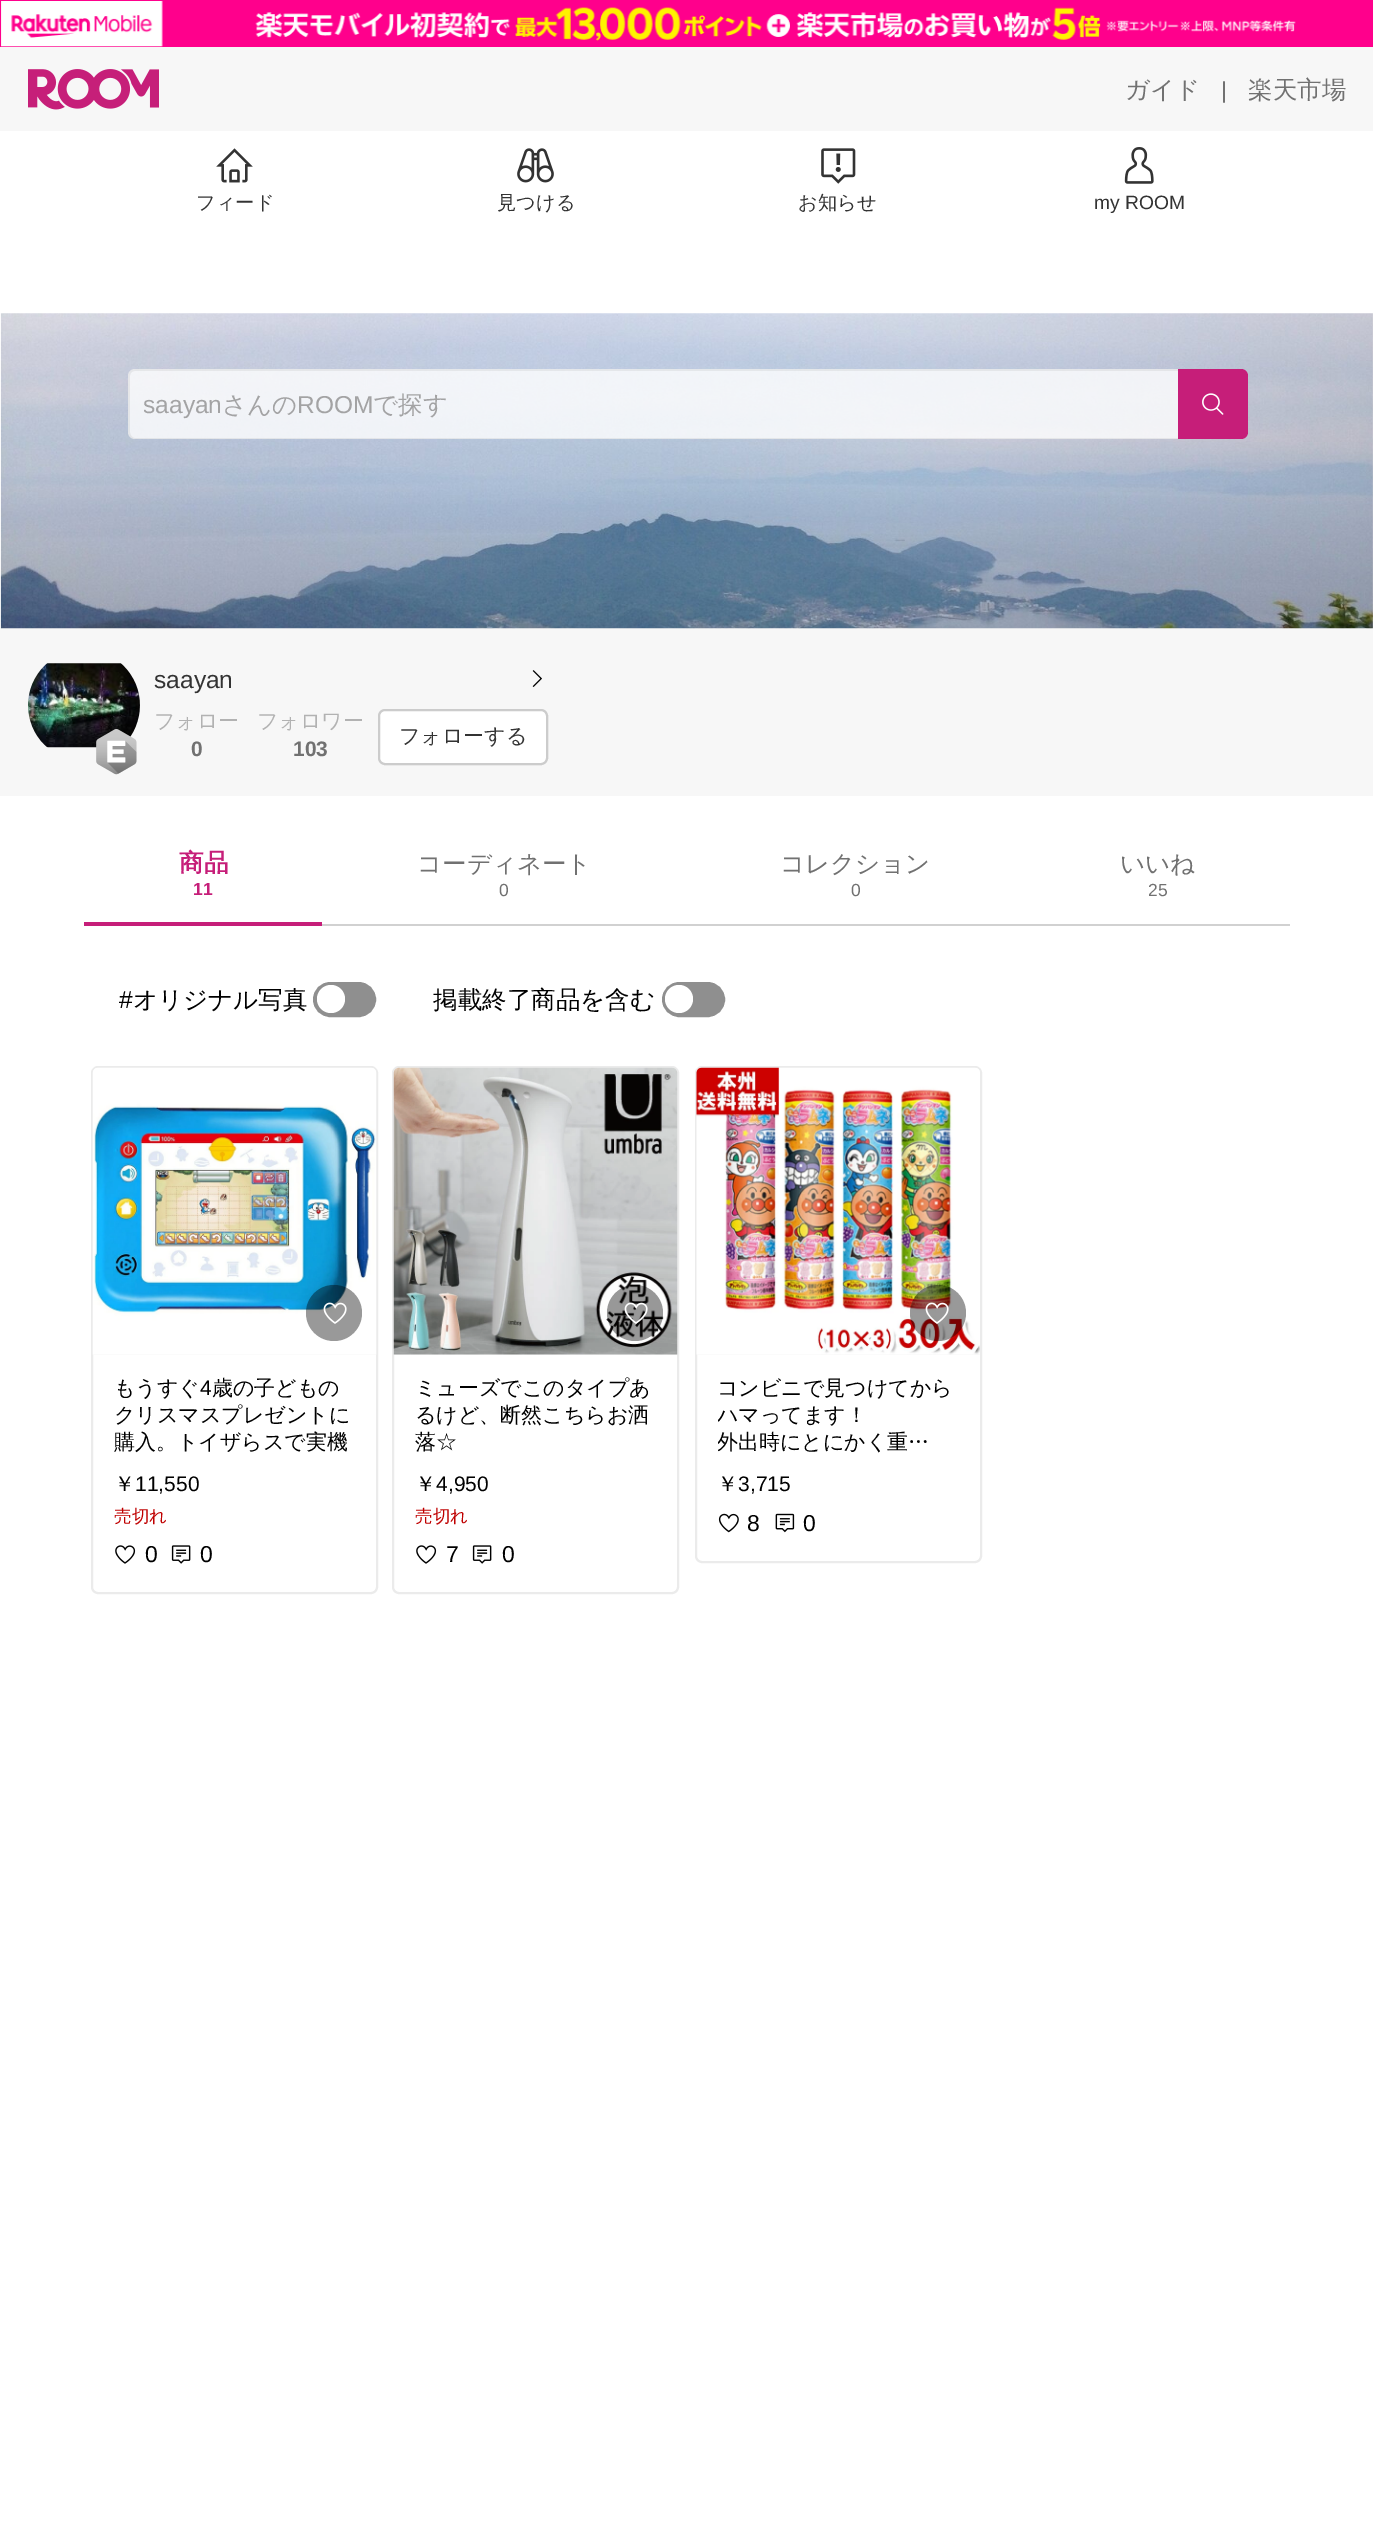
%!PS
<< /PageSize [1373 2521] /PageUsesTransparency true >> setpagedevice
/mt/moveto load def
/li/lineto load def
/ct/curveto load def
/cp/closepath load def
/fl/fill load def
/st/stroke load def
/gs/gsave load def
/gr/grestore load def
/lw/setlinewidth load def
/co { dup -16 bitshift 255 div exch dup -8 bitshift 255 and 255 div exch 255 and 255 div setrgbcolor } def
/fn { [ exch dup neg 0 0 3 -1 roll 0 0 ] selectfont } def
/tx { co fn moveto show } def
/bx { co rectfill } def
/al { dup .setfillconstantalpha .setstrokeconstantalpha } def
/ci { newpath 0 360 arc closepath } def
/rr { 5 dict begin { /r /h /w /y /x } { exch def } forall
  x r add y moveto x w add y 2 copy h add r arct x w add y h add x 1 index r arct
  x y h add x y r arct x y 2 copy exch w add exch r arct closepath end } def
/im { 5 dict begin { /h /w /y /x /name } { exch def } forall
  gsave x y translate w h scale
  w h 8 [w 0 0 h 0 0] name (r) file false 3 colorimage grestore end } def
0 .pushpdf14devicefilter
0 2521 translate 1 -1 scale
4 setmiterlimit
0 0 1373 2521 16#FFFFFF bx
(media/1.raw) 0 0 1373 47 im
0 47 1373 84 16#F7F7F7 bx
(media/2.raw) 28 69 131 41 im
(media/3.raw) 216 148 37 35 im
(media/4.raw) 517 148 37 35 im
(media/5.raw) 821 148 35 36 im
(media/6.raw) 1124 147 30 37 im
0 628 1373 168 16#F7F7F7 bx
(media/7.raw) 0 313 1373 316 im
0.8 al
16#FFFFFF co
135 369 mt 1178 369 li 1178 439 li 135 439 li 131 439 128 436 128 432 ct 128 376 li 128 372 131 369 135 369 ct cp fl
0.06 al
16#000000 co
135 369 mt 1178 369 li 1178 439 li 135 439 li 131 439 128 436 128 432 ct 128 376 li 128 372 131 369 135 369 ct cp 135 371 mt 1178 371 li 1178 438 li 135 438 li 132 438 130 435 130 432 ct 130 376 li 130 373 132 371 135 371 ct cp eofill
1 al
16#C61E79 co
1178 369 mt 1241 369 li 1245 369 1248 372 1248 376 ct 1248 432 li 1248 436 1245 439 1241 439 ct 1178 439 li cp fl
(media/8.raw) 1202 393 22 22 im
(media/9.raw) 28 663 112 85 im
(media/10.raw) 96 729 41 46 im
(media/11.raw) 532 670 10 17 im
16#FFFFFF co
378 709 170 56 7 rr fl
0.2 al
16#000000 co
2 lw
379 710 168 54 6 rr st
1 al
84 922 238 4 16#C61E79 bx
322 924 968 2 16#D1D1D1 bx
16#8F8F8F co
315 984 59 31 15.5 rr gs fl gr
4 lw
st
16#FFFFFF co
331 999 14 ci fl
16#8F8F8F co
664 984 59 31 15.5 rr gs fl gr
st
16#FFFFFF co
679 999 14 ci fl
16#EBEBEB co
2 lw
92 1067 285 526 6 rr st
16#F7F7F7 co
98 1068 mt 371 1068 li 374 1068 376 1070 376 1073 ct 376 1355 li 93 1355 li 93 1073 li 93 1070 95 1068 98 1068 ct cp fl
(media/12.raw) 92 1067 285 288 im
0.4 al
16#000000 co
334 1313 28 ci fl
1 al
(media/13.raw) 323 1302 24 22 im
(media/14.raw) 115 1545 21 19 im
(media/15.raw) 171 1545 20 19 im
16#EBEBEB co
393 1067 285 526 6 rr st
16#F7F7F7 co
399 1068 mt 672 1068 li 675 1068 677 1070 677 1073 ct 677 1355 li 394 1355 li 394 1073 li 394 1070 396 1068 399 1068 ct cp fl
(media/16.raw) 393 1067 285 288 im
0.4 al
16#000000 co
635 1313 28 ci fl
1 al
(media/17.raw) 624 1302 24 22 im
(media/14.raw) 416 1545 21 19 im
(media/15.raw) 472 1545 20 19 im
16#EBEBEB co
696 1067 285 495 6 rr st
16#F7F7F7 co
702 1068 mt 975 1068 li 978 1068 980 1070 980 1073 ct 980 1355 li 697 1355 li 697 1073 li 697 1070 699 1068 702 1068 ct cp fl
(media/18.raw) 696 1067 284 288 im
0.4 al
16#000000 co
938 1313 28 ci fl
1 al
(media/19.raw) 925 1302 24 22 im
(media/20.raw) 718 1513 21 20 im
(media/21.raw) 775 1513 20 20 im
(ガイド) 1125 98 /WenQuanYiZenHei-Medium 24.5 16#717171 tx
(|) 1221 98 /LiberationSans-Regular 23 16#717171 tx
(楽天市場) 1248 98 /WenQuanYiZenHei-Medium 24.5 16#717171 tx
(フィード) 196 209 /WenQuanYiZenHei-Medium 19.25 16#333333 tx
(見つける) 497 209 /WenQuanYiZenHei-Medium 19.25 16#333333 tx
(お知らせ) 798 209 /WenQuanYiZenHei-Medium 19.25 16#333333 tx
(my ROOM) 1094 209 /LiberationSans-Regular 19.25 16#333333 tx
gs
144 390 964 32 rectclip
(saayan) 143 413 /LiberationSans-Regular 24.5 16#A3A3A4 tx
gr
(さんの) 222 413 /WenQuanYiZenHei-Medium 24.5 16#A3A3A4 tx
(ROOM) 297 413 /LiberationSans-Regular 24.5 16#A3A3A4 tx
(で探す) 373 413 /WenQuanYiZenHei-Medium 24.5 16#A3A3A4 tx
(saayan) 154 688 /LiberationSans-Regular 24.5 16#333333 tx
(フォロー) 154 728 /WenQuanYiZenHei-Medium 21 16#B2B2B2 tx
(0) 191 756 /LiberationSans-Bold 21 16#717171 tx
(フォロワー) 257 728 /WenQuanYiZenHei-Medium 21 16#B2B2B2 tx
(103) 293 756 /LiberationSans-Bold 21 16#717171 tx
(フォローする) 399 743 /WenQuanYiZenHei-Medium 21 16#333333 tx
(商品) 179 871 /WenQuanYiZenHei-Bold 24.5 16#C61E79 tx
(11) 193 895 /LiberationSans-Bold 17.5 16#C61E79 tx
(コーディネート) 417 872 /WenQuanYiZenHei-Medium 24.5 16#717171 tx
(0) 499 896 /LiberationSans-Regular 17.5 16#717171 tx
(コレクション) 780 872 /WenQuanYiZenHei-Medium 24.5 16#717171 tx
(0) 851 896 /LiberationSans-Regular 17.5 16#717171 tx
(いいね) 1120 872 /WenQuanYiZenHei-Medium 24.5 16#717171 tx
(25) 1148 896 /LiberationSans-Regular 17.5 16#717171 tx
(#) 119 1008 /LiberationSans-Regular 24.5 16#000000 tx
(オリジナル写真) 133 1008 /WenQuanYiZenHei-Medium 24.5 16#000000 tx
(掲載終了商品を含む) 433 1008 /WenQuanYiZenHei-Medium 24.5 16#000000 tx
(もうすぐ) 114 1395 /WenQuanYiZenHei-Medium 21 16#000000 tx
(4) 200 1395 /LiberationSans-Regular 21 16#000000 tx
(歳の子どもの) 212 1395 /WenQuanYiZenHei-Medium 21 16#000000 tx
(クリスマスプレゼントに) 114 1422 /WenQuanYiZenHei-Medium 21 16#000000 tx
(購入。トイザらスで実機) 114 1449 /WenQuanYiZenHei-Medium 21 16#000000 tx
(￥) 114 1491 /WenQuanYiZenHei-Medium 21 16#000000 tx
(11,550) 135 1491 /LiberationSans-Regular 21 16#000000 tx
(売切れ) 114 1522 /WenQuanYiZenHei-Medium 17.5 16#BF0000 tx
(0) 145 1562 /LiberationSans-Regular 23 16#000000 tx
(0) 200 1562 /LiberationSans-Regular 23 16#000000 tx
(ミューズでこのタイプあ) 415 1395 /WenQuanYiZenHei-Medium 21 16#000000 tx
(るけど、断然こちらお洒) 415 1422 /WenQuanYiZenHei-Medium 21 16#000000 tx
(落☆) 415 1449 /WenQuanYiZenHei-Medium 21 16#000000 tx
(￥) 415 1491 /WenQuanYiZenHei-Medium 21 16#000000 tx
(4,950) 436 1491 /LiberationSans-Regular 21 16#000000 tx
(売切れ) 415 1522 /WenQuanYiZenHei-Medium 17.5 16#BF0000 tx
(7) 446 1562 /LiberationSans-Regular 23 16#000000 tx
(0) 502 1562 /LiberationSans-Regular 23 16#000000 tx
(コンビニで見つけてから) 717 1395 /WenQuanYiZenHei-Medium 21 16#000000 tx
gs
718 1376 241 84 rectclip
(ハマってます！) 717 1422 /WenQuanYiZenHei-Medium 21 16#000000 tx
(外出時にとにかく重…) 717 1449 /WenQuanYiZenHei-Medium 21 16#000000 tx
gr
(￥) 717 1491 /WenQuanYiZenHei-Medium 21 16#000000 tx
(3,715) 738 1491 /LiberationSans-Regular 21 16#000000 tx
(8) 747 1531 /LiberationSans-Regular 23 16#000000 tx
(0) 803 1531 /LiberationSans-Regular 23 16#000000 tx
.poppdf14devicefilter showpage
